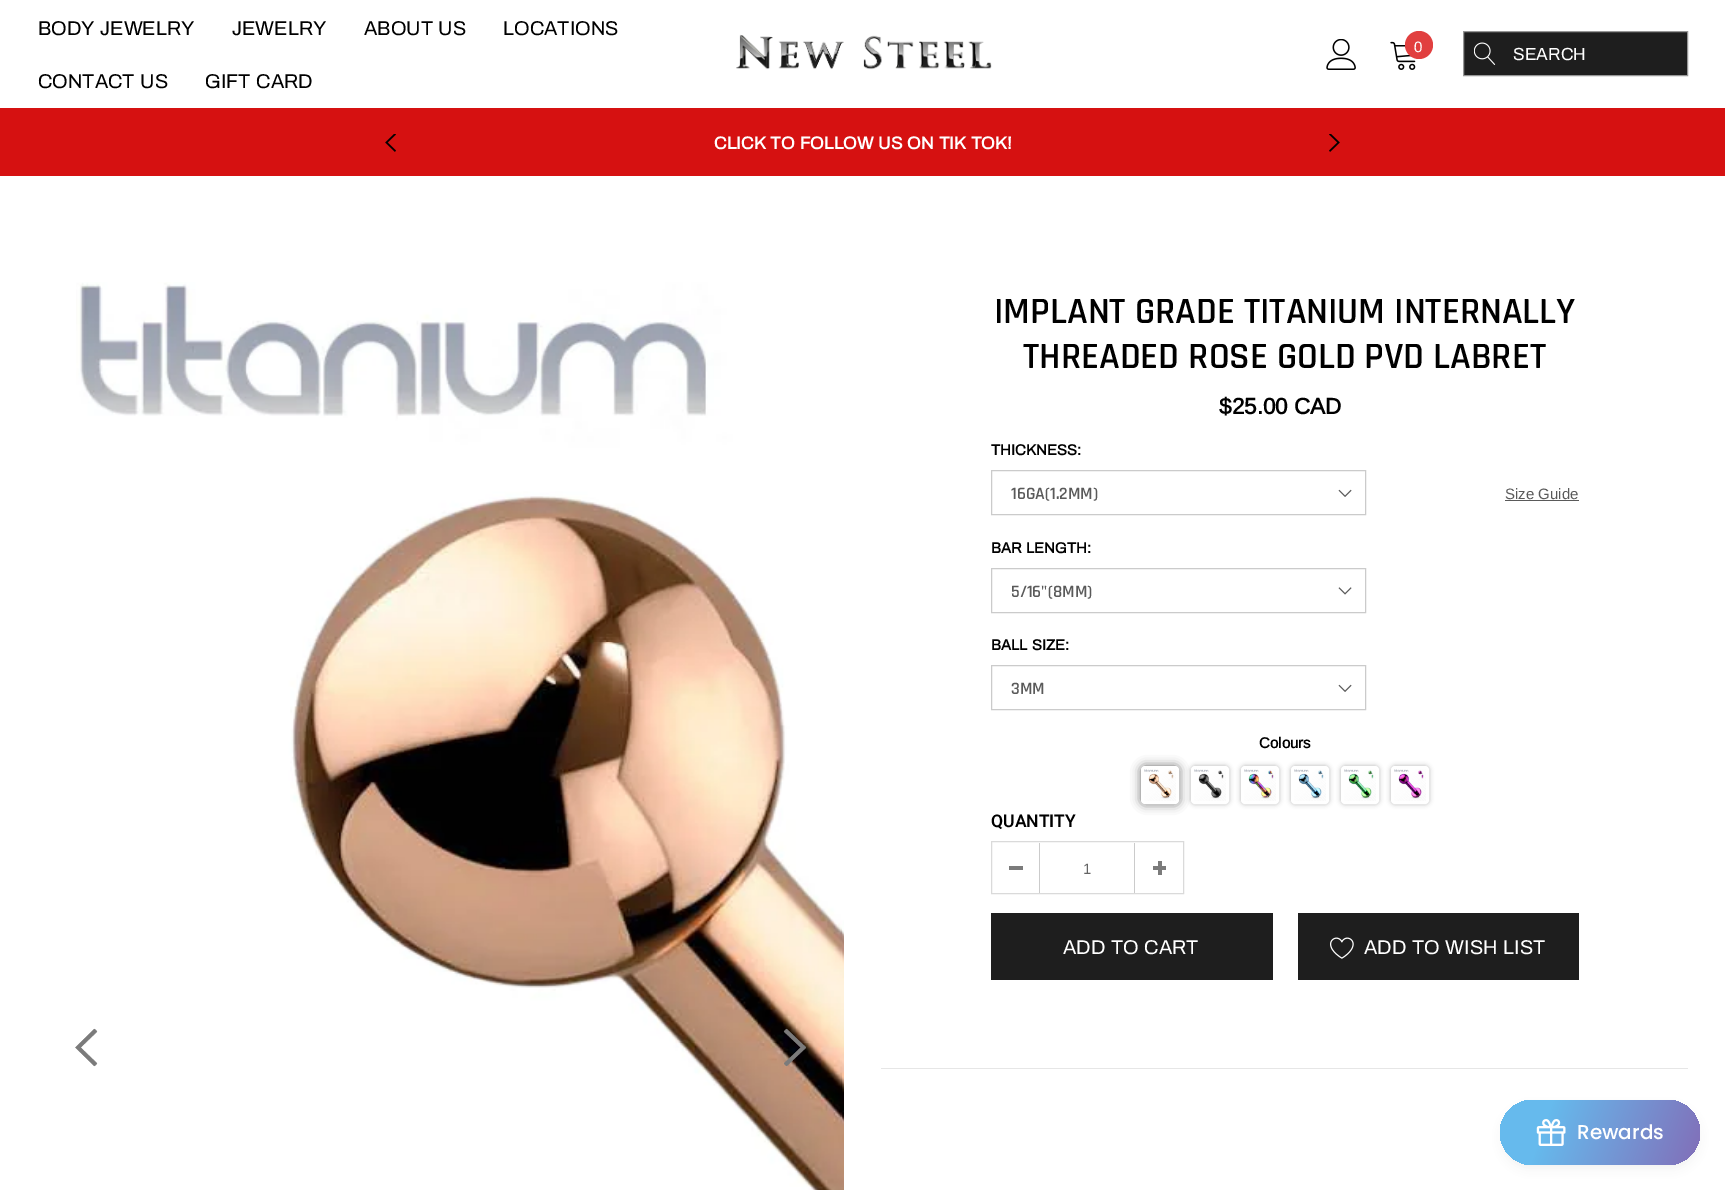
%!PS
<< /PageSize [1725 1190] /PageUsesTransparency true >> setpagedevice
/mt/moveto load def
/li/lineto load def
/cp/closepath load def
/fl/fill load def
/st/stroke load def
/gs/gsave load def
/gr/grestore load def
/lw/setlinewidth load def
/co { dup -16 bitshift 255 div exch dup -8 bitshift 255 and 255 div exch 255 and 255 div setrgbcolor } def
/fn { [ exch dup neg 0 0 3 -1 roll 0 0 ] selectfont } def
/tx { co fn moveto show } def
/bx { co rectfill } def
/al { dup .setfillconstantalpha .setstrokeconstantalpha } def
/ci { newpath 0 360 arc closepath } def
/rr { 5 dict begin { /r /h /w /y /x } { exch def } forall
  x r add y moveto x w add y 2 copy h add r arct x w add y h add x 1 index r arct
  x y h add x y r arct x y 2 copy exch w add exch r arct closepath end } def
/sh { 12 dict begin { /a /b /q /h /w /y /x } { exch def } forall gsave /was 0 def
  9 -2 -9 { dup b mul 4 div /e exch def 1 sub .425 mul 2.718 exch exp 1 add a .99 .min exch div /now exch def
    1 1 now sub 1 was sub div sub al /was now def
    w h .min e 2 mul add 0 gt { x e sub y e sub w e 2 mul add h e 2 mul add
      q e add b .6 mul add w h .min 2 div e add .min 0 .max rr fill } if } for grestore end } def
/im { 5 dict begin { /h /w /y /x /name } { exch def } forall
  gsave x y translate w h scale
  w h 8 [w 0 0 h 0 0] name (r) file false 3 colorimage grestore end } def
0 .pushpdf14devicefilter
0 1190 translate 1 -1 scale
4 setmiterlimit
0 0 1725 1190 16#FFFFFF bx
(media/1.raw) 736 34 256 36 im
(media/2.raw) 1326 39 30 31 im
(media/3.raw) 1390 41 26 29 im
16#E13F3F co
1419 45 14 ci fl
16#1E1E1E co
1463.5 31.5 mt 1687.5 31.5 li 1687.5 75.5 li 1463.5 75.5 li cp gs fl gr
16#969696 co
st
(media/4.raw) 1474 42 22 23 im
0 108 1725 68 16#D61111 bx
(media/5.raw) 385 134 11 18 im
(media/6.raw) 1329 134 11 18 im
(media/7.raw) 76 282 768 908 im
16#7B7B7B co
97 1031.5 mt 94.5 1029 li 75.5 1047.5 li 94.5 1066 li 97 1063.5 li 80.5 1047.5 li cp gs fl gr
.1 lw
st
786.5 1029 mt 784 1031.5 li 801 1047.5 li 784 1063.5 li 786.5 1066 li 806 1047.5 li cp gs fl gr
st
(media/8.raw) 1338 489 14 8 im
16#CBCBCB co
1 lw
991.5 470.5 374 44 rectstroke
1505 500 74 1 16#5A5A5A bx
(media/9.raw) 1338 587 14 8 im
16#CBCBCB co
991.5 568.5 374 44 rectstroke
(media/8.raw) 1338 684 14 8 im
991.5 665.5 374 44 rectstroke
16#000000 co
1141 766 38 38 4 5 .6 sh
16#FFFFFF co
3 lw
1142.5 767.5 35 35 2.5 rr st
(media/10.raw) 1144 769 32 32 im
16#000000 co
1191 766 38 38 4 2.5 .3 sh
16#FFFFFF co
1192.5 767.5 35 35 2.5 rr st
(media/11.raw) 1194 769 32 32 im
16#000000 co
1241 766 38 38 4 2.5 .3 sh
16#FFFFFF co
1242.5 767.5 35 35 2.5 rr st
(media/12.raw) 1244 769 32 32 im
16#000000 co
1291 766 38 38 4 2.5 .3 sh
16#FFFFFF co
1292.5 767.5 35 35 2.5 rr st
(media/13.raw) 1294 769 32 32 im
16#000000 co
1341 766 38 38 4 2.5 .3 sh
16#FFFFFF co
1342.5 767.5 35 35 2.5 rr st
(media/14.raw) 1344 769 32 32 im
16#000000 co
1391 766 38 38 4 2.5 .3 sh
16#FFFFFF co
1392.5 767.5 35 35 2.5 rr st
(media/15.raw) 1394 769 32 32 im
16#DADADA co
1 lw
991.5 841.5 192 52 rectstroke
1039 843 1 50 16#CBCBCB bx
1009 866 14 4 16#7B7B7B bx
1134 843 1 50 16#CBCBCB bx
1153 866 13 4 16#7B7B7B bx
1158 861 4 14 16#7B7B7B bx
991 913 282 67 16#1E1E1E bx
1298 913 281 67 16#1E1E1E bx
(media/16.raw) 1330 937 24 22 im
881 1068 807 1 16#E6E6E6 bx
16#444444 co
1503 1108 195 60 30 5 .08 sh
gs 1500 1100 200 65 32.5 rr clip newpath
<< /ShadingType 2 /ColorSpace /DeviceRGB /Coords [1501 1097 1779 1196] /Extend [true true] /Function << /FunctionType 3 /Domain [0 1] /Functions [<< /FunctionType 2 /Domain [0 1] /C0 [.4 .729 .929] /C1 [.4 .729 .929] /N 1 >> << /FunctionType 2 /Domain [0 1] /C0 [.4 .729 .929] /C1 [.569 .275 .612] /N 1 >>] /Bounds [.17] /Encode [0 1 0 1] >> >> shfill gr
(media/17.raw) 1536 1119 30 27 im
(BODY JEWELRY) 38 35 /Archivo-Regular 20 16#000000 tx
(JEWELRY) 232 35 /Archivo-Regular 20 16#000000 tx
(ABOUT US) 364 35 /Archivo-Regular 20 16#000000 tx
(LOCATIONS) 503 35 /Archivo-Regular 20 16#000000 tx
(CONTACT US) 38 88 /Archivo-Regular 20 16#000000 tx
(GIFT CARD) 205 88 /Archivo-Regular 20 16#000000 tx
(0) 1414 52 /Archivo-Regular 15 16#FFFFFF tx
(SEARCH) 1513 60 /Archivo-Regular 17.5 16#FFFFFF tx
(CLICK TO FOLLOW US ON TIK TOK!) 714 149 /Archivo-Bold 17.5 16#FFFFFF tx
(IMPLANT GRADE TITANIUM INTERNALLY) 994 323 /Rajdhani-SemiBold 37.5 16#000000 tx
(THREADED ROSE GOLD PVD LABRET) 1023 368 /Rajdhani-SemiBold 37.5 16#000000 tx
($25.00 CAD) 1219 414 /Arimo-Bold 22.5 16#000000 tx
(THICKNESS:) 991 455 /Archivo-Bold 15 16#000000 tx
(16GA\(1.2MM\)) 1011 499 /Rajdhani-SemiBold 17.5 16#5A5A5A tx
(Size Guide) 1505 499 /Arimo-Regular 15 16#5A5A5A tx
(BAR LENGTH:) 991 553 /Archivo-Bold 15 16#000000 tx
(5/16"\(8MM\)) 1011 597 /Rajdhani-SemiBold 17.5 16#5A5A5A tx
(BALL SIZE:) 991 650 /Archivo-Bold 15 16#000000 tx
(3MM) 1011 694 /Rajdhani-SemiBold 17.5 16#5A5A5A tx
(Colours) 1259 748 /Arimo-Bold 15 16#000000 tx
(QUANTITY) 991 827 /Heebo-SemiBold 17.5 16#000000 tx
(1) 1083 874 /Arimo-Regular 15 16#646464 tx
(ADD TO CART) 1063 954 /Archivo-Regular 20 16#FFFFFF tx
(ADD TO WISH LIST) 1364 954 /Archivo-Regular 20 16#FFFFFF tx
(Rewards) 1577 1139 /Poppins-Medium 20 16#FFFFFF tx
.poppdf14devicefilter showpage
